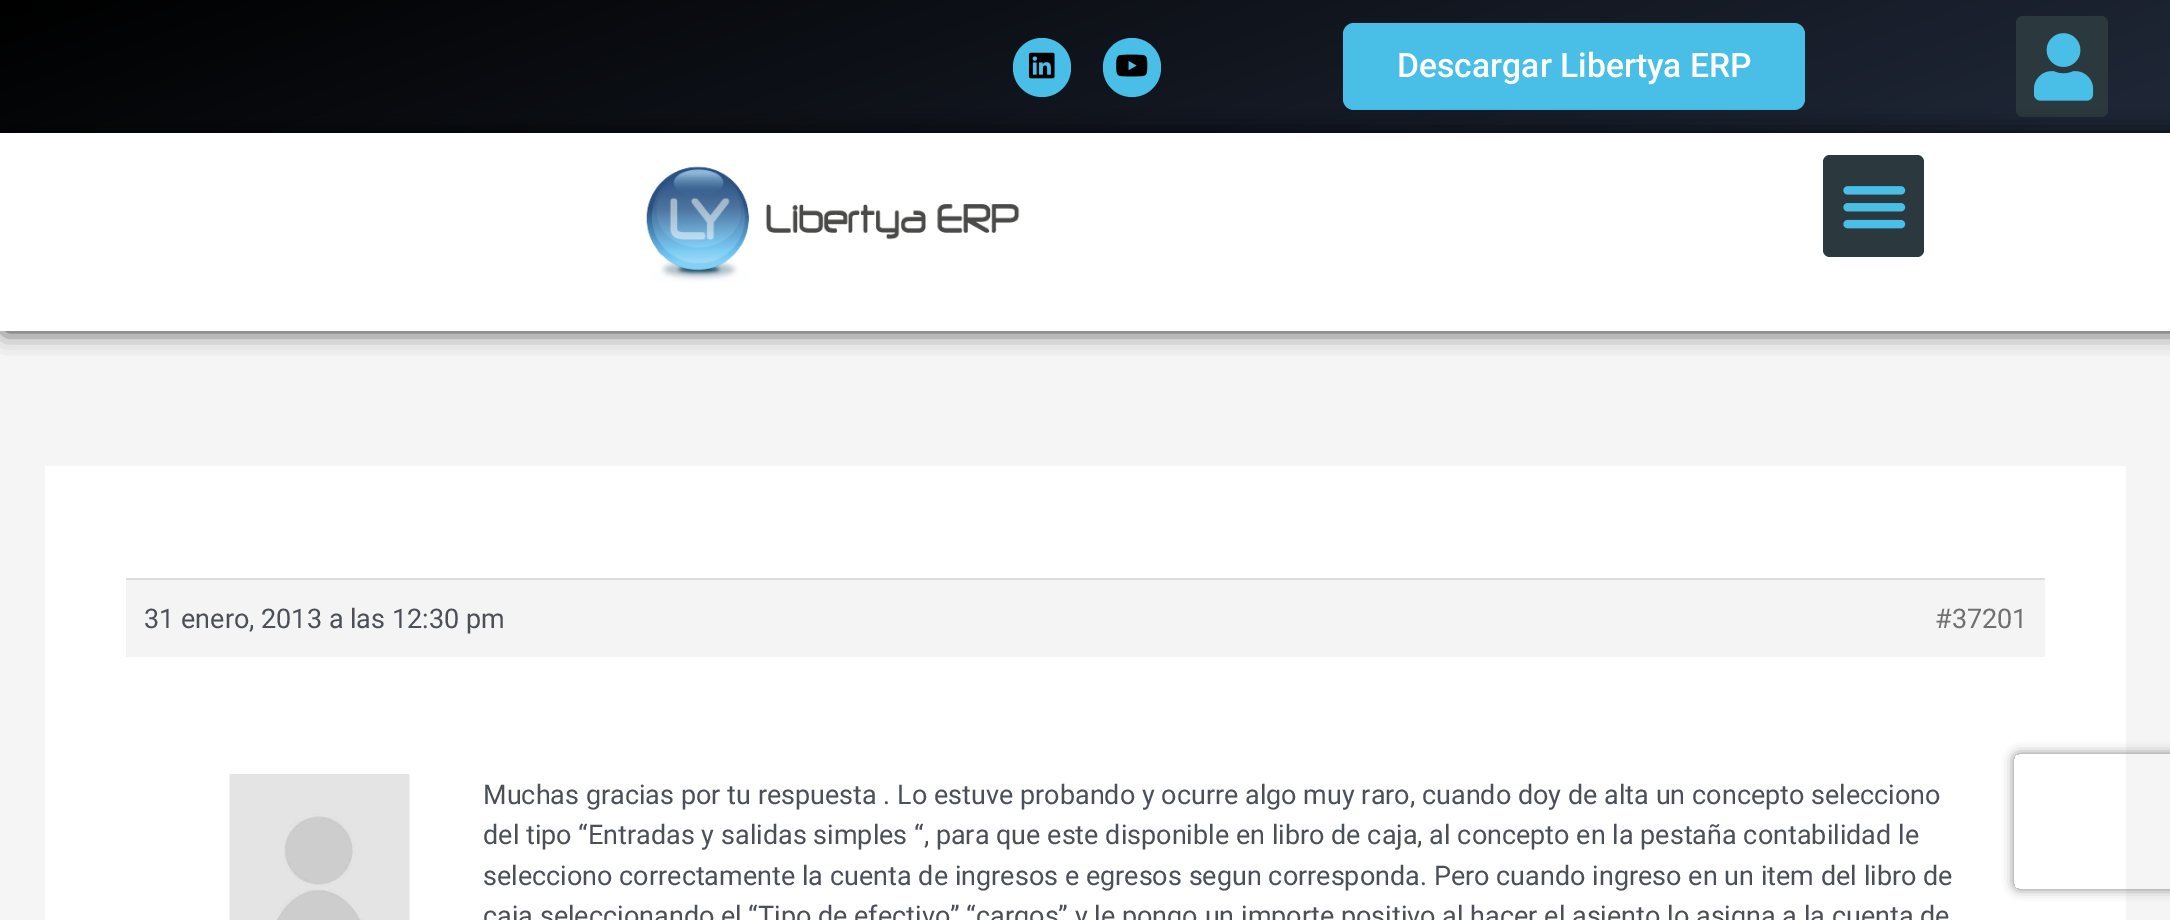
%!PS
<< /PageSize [2170 920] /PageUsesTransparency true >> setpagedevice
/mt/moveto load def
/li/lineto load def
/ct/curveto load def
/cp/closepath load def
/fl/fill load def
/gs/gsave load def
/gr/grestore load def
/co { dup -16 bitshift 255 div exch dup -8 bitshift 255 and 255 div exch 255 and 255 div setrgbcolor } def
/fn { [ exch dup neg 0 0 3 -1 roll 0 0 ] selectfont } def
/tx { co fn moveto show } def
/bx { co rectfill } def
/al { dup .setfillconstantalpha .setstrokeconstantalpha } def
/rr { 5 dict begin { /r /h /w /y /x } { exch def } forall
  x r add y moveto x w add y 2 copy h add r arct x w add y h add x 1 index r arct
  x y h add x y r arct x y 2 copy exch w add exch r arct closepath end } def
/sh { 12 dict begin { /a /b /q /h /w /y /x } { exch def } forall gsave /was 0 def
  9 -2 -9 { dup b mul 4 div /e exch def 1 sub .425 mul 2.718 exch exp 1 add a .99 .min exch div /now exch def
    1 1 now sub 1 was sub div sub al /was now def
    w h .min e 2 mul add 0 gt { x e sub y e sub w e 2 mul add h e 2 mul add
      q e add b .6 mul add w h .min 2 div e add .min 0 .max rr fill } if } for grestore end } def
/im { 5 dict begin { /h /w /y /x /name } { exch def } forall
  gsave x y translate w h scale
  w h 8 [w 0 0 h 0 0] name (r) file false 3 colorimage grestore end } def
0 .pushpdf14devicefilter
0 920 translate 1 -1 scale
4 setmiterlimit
0 0 2170 920 16#F5F5F5 bx
gs 0 0 mt 2170 0 li 2170 133 li 0 133 li cp clip newpath
<< /ShadingType 2 /ColorSpace /DeviceRGB /Coords [937 -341 1234 474] /Extend [true true] /Function << /FunctionType 3 /Domain [0 1] /Functions [<< /FunctionType 2 /Domain [0 1] /C0 [0 0 0] /C1 [.118 .149 .208] /N 1 >> << /FunctionType 2 /Domain [0 1] /C0 [.118 .149 .208] /C1 [.118 .149 .208] /N 1 >>] /Bounds [.95] /Encode [0 1 0 1] >> >> shfill gr
16#49BFE8 co
1013 38 58 59 29 rr fl
(media/1.raw) 1028 52 27 27 im
1103 38 58 59 29 rr fl
(media/2.raw) 1116 54 32 23 im
1343 23 462 87 11 rr fl
16#2B393E co
2016 16 92 101 7 rr fl
(media/3.raw) 2034 33 60 68 im
16#000000 co
5 133 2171 198 0 11 .82 sh
0 133 2170 198 16#FFFFFF bx
(media/4.raw) 646 166 374 116 im
16#2B393E co
1823 155 101 102 7 rr fl
(media/5.raw) 1843 186 63 43 im
45 466 2081 454 16#FFFFFF bx
126 580 1919 77 16#F4F4F4 bx
126 578 1919 2 16#DDDDDD bx
(media/6.raw) 229 774 181 146 im
gs
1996 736 mt 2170 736 li 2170 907 li 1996 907 li cp 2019 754 mt 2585 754 li 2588 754 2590 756 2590 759 ct 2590 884 li 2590 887 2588 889 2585 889 ct 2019 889 li 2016 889 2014 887 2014 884 ct 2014 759 li 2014 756 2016 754 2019 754 ct cp eoclip newpath
16#808080 co
2014 754 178 135 5 5.5 1 sh
gr
(Descargar Libertya ERP) 1397 77 /Roboto-Medium 33.75 16#FFFFFF tx
(31 enero, 2013 a las 12:30 pm) 144 628 /Roboto-Regular 27 16#4B4F58 tx
(#37201) 1935 628 /Roboto-Regular 27 16#707070 tx
(Muchas gracias por tu respuesta . Lo estuve probando y ocurre algo muy raro, cuando doy de alta un concepto selecciono) 483 804 /Roboto-Regular 27 16#4B4F58 tx
(del tipo “Entradas y salidas simples “, para que este disponible en libro de caja, al concepto en la pestaña contabilidad le) 483 844 /Roboto-Regular 27 16#4B4F58 tx
(selecciono correctamente la cuenta de ingresos e egresos segun corresponda. Pero cuando ingreso en un item del libro de) 483 885 /Roboto-Regular 27 16#4B4F58 tx
(caja seleccionando el “Tipo de efectivo” “cargos” y le pongo un importe positivo al hacer el asiento lo asigna a la cuenta de) 483 925 /Roboto-Regular 27 16#4B4F58 tx
.poppdf14devicefilter showpage
